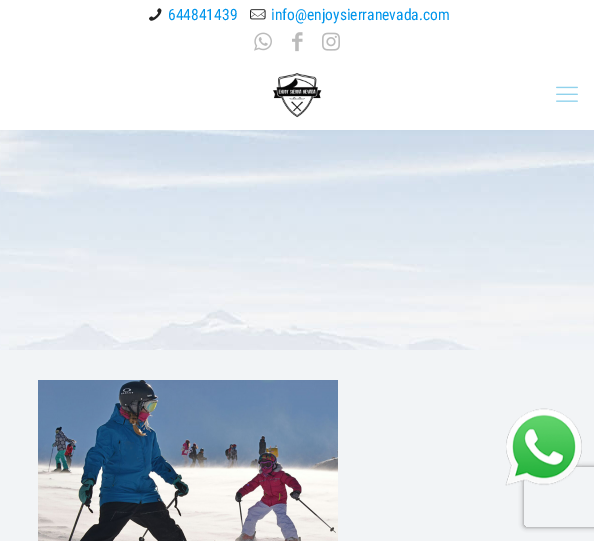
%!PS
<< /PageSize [594 541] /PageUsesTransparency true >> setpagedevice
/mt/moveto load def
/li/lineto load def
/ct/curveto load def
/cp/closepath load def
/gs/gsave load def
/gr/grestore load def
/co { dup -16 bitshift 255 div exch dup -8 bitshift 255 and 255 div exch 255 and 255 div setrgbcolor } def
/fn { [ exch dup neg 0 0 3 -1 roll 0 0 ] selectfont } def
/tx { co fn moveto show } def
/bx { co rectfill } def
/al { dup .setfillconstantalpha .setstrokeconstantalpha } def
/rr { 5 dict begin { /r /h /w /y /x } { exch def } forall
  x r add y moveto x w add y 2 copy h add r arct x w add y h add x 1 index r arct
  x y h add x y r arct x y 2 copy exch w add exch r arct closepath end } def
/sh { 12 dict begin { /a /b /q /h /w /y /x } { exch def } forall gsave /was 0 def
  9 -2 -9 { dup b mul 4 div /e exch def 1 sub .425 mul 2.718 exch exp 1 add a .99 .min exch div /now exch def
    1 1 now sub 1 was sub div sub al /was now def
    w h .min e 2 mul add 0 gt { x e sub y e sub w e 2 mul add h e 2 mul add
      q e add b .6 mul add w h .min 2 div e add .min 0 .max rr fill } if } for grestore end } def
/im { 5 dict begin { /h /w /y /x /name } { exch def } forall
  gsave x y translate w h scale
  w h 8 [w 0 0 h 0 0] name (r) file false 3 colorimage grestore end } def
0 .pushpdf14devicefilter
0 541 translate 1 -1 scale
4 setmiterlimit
0 0 594 541 16#FFFFFF bx
(media/1.raw) 0 130 594 220 im
(media/2.raw) 149 8 13 13 im
(media/3.raw) 250 9 16 11 im
(media/4.raw) 254 32 18 19 im
(media/5.raw) 292 32 11 20 im
(media/6.raw) 322 32 18 19 im
(media/7.raw) 272 73 50 45 im
(media/8.raw) 556 86 22 16 im
0 350 594 191 16#F2F4F6 bx
(media/9.raw) 38 380 300 161 im
gs
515 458 mt 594 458 li 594 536 li 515 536 li cp 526 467 mt 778 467 li 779 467 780 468 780 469 ct 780 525 li 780 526 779 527 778 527 ct 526 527 li 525 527 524 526 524 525 ct 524 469 li 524 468 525 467 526 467 ct cp eoclip newpath
16#808080 co
524 467 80 60 2 2.5 1 sh
gr
(media/10.raw) 505 408 77 78 im
(644841439) 168 20 /RobotoCondensed-Regular 15.6 16#0095EB tx
(info@enjoysierranevada.com) 271 20 /RobotoCondensed-Regular 15.6 16#0095EB tx
.poppdf14devicefilter showpage
